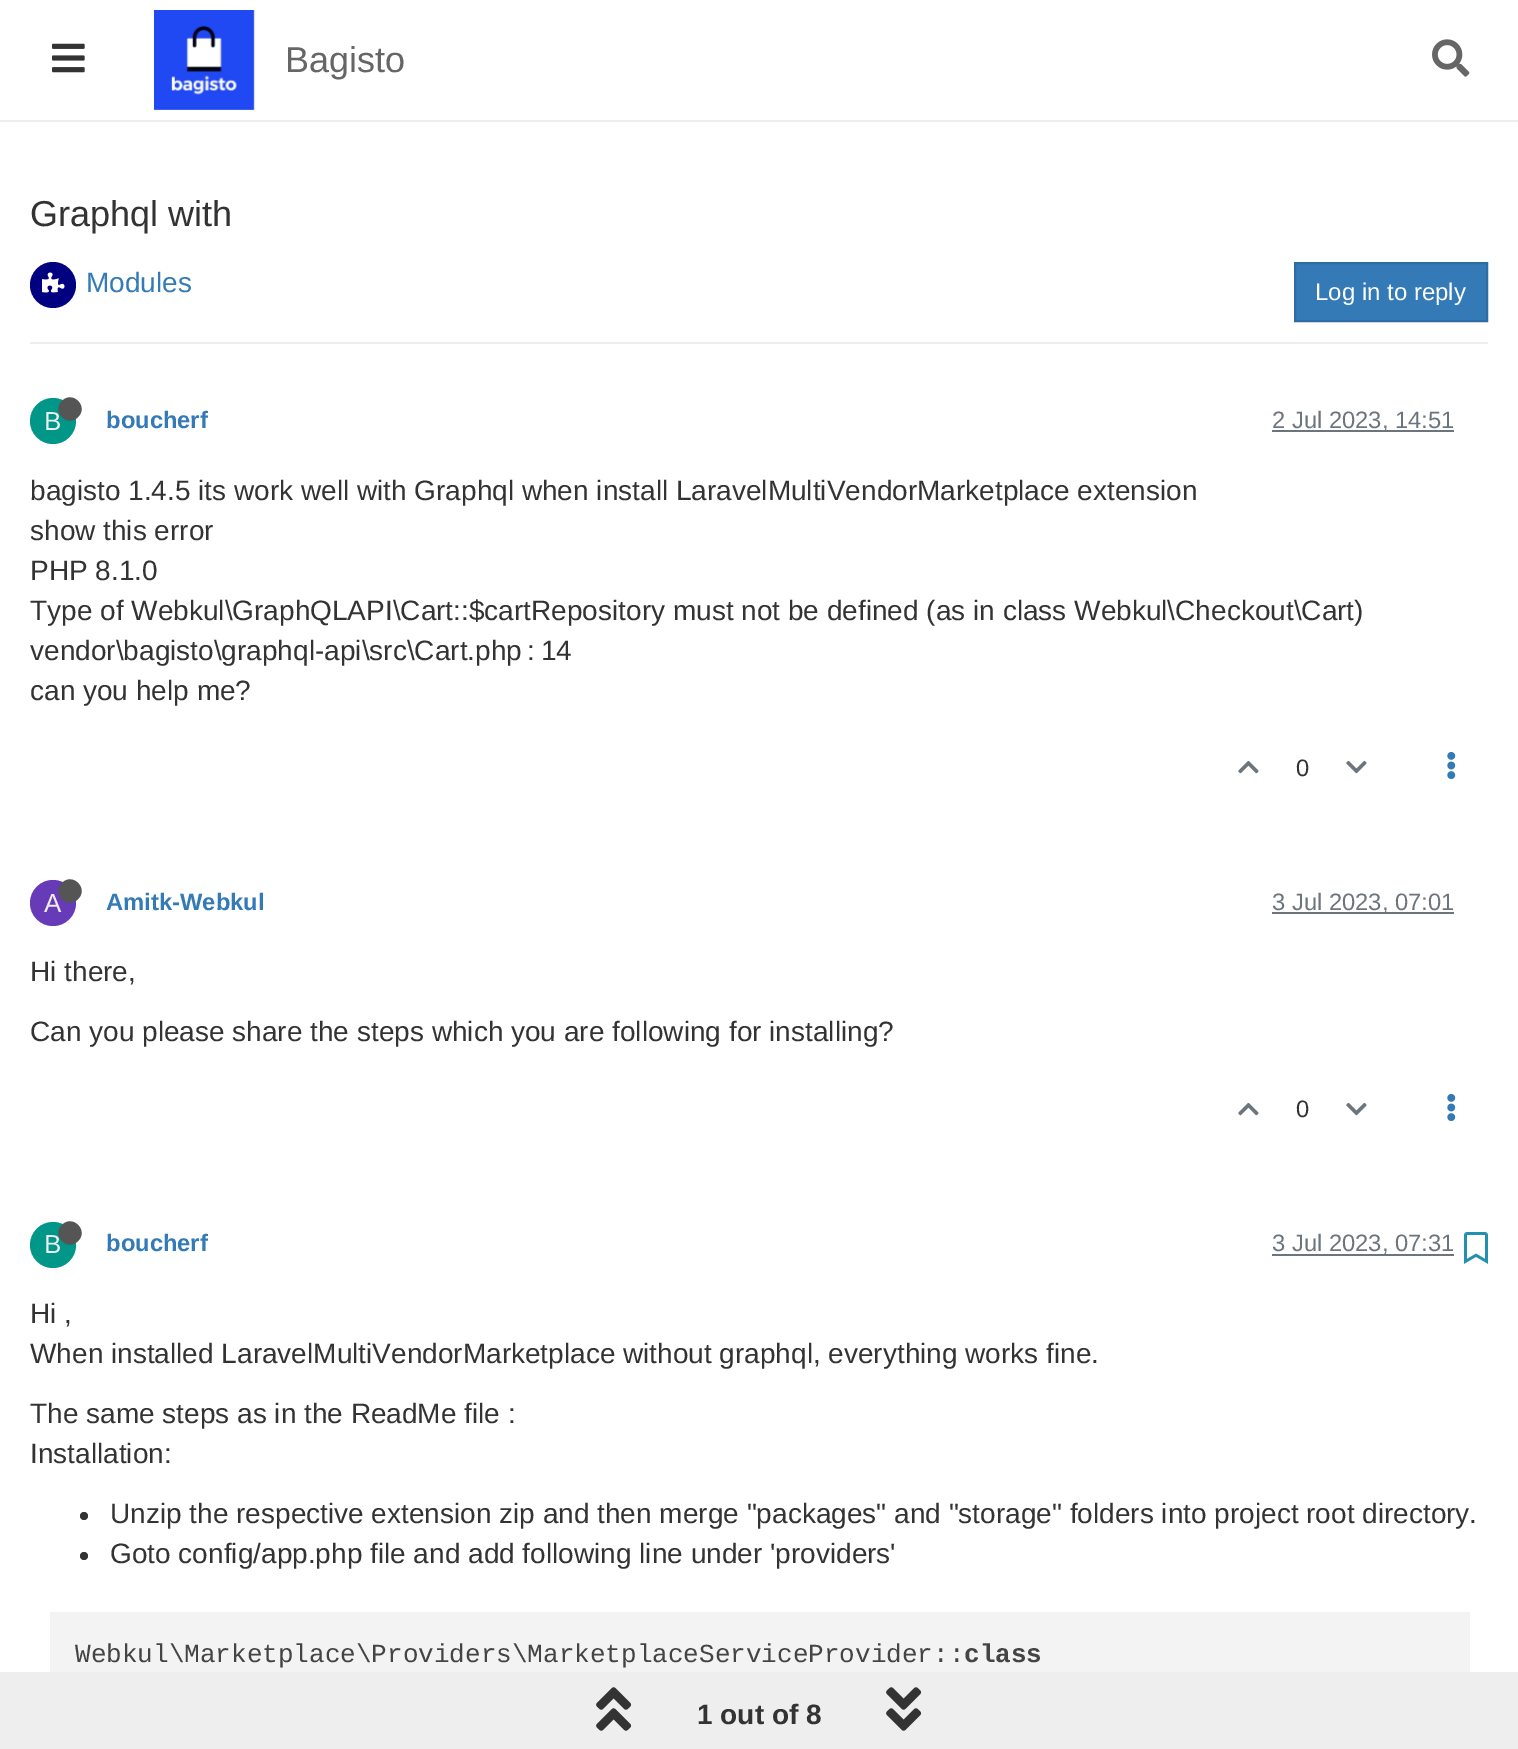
%!PS
<< /PageSize [1518 1749] >> setpagedevice
/mt/moveto load def
/li/lineto load def
/ct/curveto load def
/cp/closepath load def
/fl/fill load def
/st/stroke load def
/gs/gsave load def
/gr/grestore load def
/lw/setlinewidth load def
/co { dup -16 bitshift 255 div exch dup -8 bitshift 255 and 255 div exch 255 and 255 div setrgbcolor } def
/fn { [ exch dup neg 0 0 3 -1 roll 0 0 ] selectfont } def
/tx { co fn moveto show } def
/bx { co rectfill } def
/ci { newpath 0 360 arc closepath } def
/im { 5 dict begin { /h /w /y /x /name } { exch def } forall
  gsave x y translate w h scale
  w h 8 [w 0 0 h 0 0] name (r) file false 3 colorimage grestore end } def
0 1749 translate 1 -1 scale
4 setmiterlimit
0 0 1518 1749 16#FFFFFF bx
0 120 1518 2 16#EEEEEE bx
(media/1.raw) 52 43 33 30 im
(media/2.raw) 154 10 101 100 im
(media/3.raw) 1432 39 38 38 im
30 342 1458 2 16#EEEEEE bx
16#000080 co
53 285 23 ci fl
(media/4.raw) 42 272 23 21 im
16#337AB7 co
1295 263 mt 1487 263 li 1487 321 li 1295 321 li cp gs fl gr
16#2E6DA4 co
2 lw
st
16#009688 co
53 421 23 ci fl
1272 430 182 2 16#6C757D bx
(media/5.raw) 1238 760 21 14 im
(media/6.raw) 1346 760 21 14 im
(media/7.raw) 1447 751 9 29 im
16#673AB7 co
53 903 23 ci fl
1272 912 182 2 16#6C757D bx
(media/5.raw) 1238 1102 21 14 im
(media/6.raw) 1346 1102 21 14 im
(media/7.raw) 1447 1093 9 29 im
16#009688 co
53 1245 23 ci fl
1272 1254 182 2 16#6C757D bx
(media/8.raw) 1464 1232 24 32 im
16#333333 co
84 1516 4 ci fl
84 1556 4 ci fl
50 1612 1420 60 16#F3F3F3 bx
0 1672 1518 77 16#EEEEEE bx
(media/9.raw) 596 1687 36 44 im
(media/10.raw) 886 1687 36 44 im
(Bagisto) 285 72 /LiberationSans-Regular 36 16#666666 tx
(Graphql with) 30 226 /LiberationSans-Regular 36 16#333333 tx
(Modules) 86 292 /LiberationSans-Regular 28 16#337AB7 tx
(Log in to reply) 1315 300 /LiberationSans-Regular 24 16#FFFFFF tx
(B) 44 430 /LiberationSans-Regular 26 16#EEEEEE tx
16#555555 co
62 401 mt 72.5 390 89 406.5 78 417 ct 67.5 428 51 411.5 62 401 ct cp fl
(boucherf) 106 428 /LiberationSans-Bold 23.75 16#337AB7 tx
(2 Jul 2023, 14:51) 1272 428 /LiberationSans-Regular 23.75 16#6C757D tx
(bagisto 1.4.5 its work well with Graphql when install LaravelMultiVendorMarketplace extension) 30 500 /LiberationSans-Regular 28 16#333333 tx
(show this error) 30 540 /LiberationSans-Regular 28 16#333333 tx
(PHP 8.1.0) 30 580 /LiberationSans-Regular 28 16#333333 tx
(Type of Webkul\\GraphQLAPI\\Cart::$cartRepository must not be defined \(as in class Webkul\\Checkout\\Cart\)) 30 620 /LiberationSans-Regular 28 16#333333 tx
(vendor\\bagisto\\graphql-api\\src\\Cart.php : 14) 30 660 /LiberationSans-Regular 28 16#333333 tx
(can you help me?) 30 700 /LiberationSans-Regular 28 16#333333 tx
(0) 1296 776 /LiberationSans-Regular 23.75 16#333333 tx
(A) 44 912 /LiberationSans-Regular 26 16#EEEEEE tx
16#555555 co
62 883 mt 72.5 872 89 888.5 78 899 ct 67.5 910 51 893.5 62 883 ct cp fl
(Amitk-Webkul) 106 910 /LiberationSans-Bold 23.75 16#337AB7 tx
(3 Jul 2023, 07:01) 1272 910 /LiberationSans-Regular 23.75 16#6C757D tx
(Hi there,) 30 981 /LiberationSans-Regular 28 16#333333 tx
(Can you please share the steps which you are following for installing?) 30 1041 /LiberationSans-Regular 28 16#333333 tx
(0) 1296 1117 /LiberationSans-Regular 23.75 16#333333 tx
(B) 44 1253 /LiberationSans-Regular 26 16#EEEEEE tx
16#555555 co
62 1225 mt 72.5 1214 89 1230.5 78 1241 ct 67.5 1252 51 1235.5 62 1225 ct cp fl
(boucherf) 106 1251 /LiberationSans-Bold 23.75 16#337AB7 tx
(3 Jul 2023, 07:31) 1272 1251 /LiberationSans-Regular 23.75 16#6C757D tx
(Hi ,) 30 1323 /LiberationSans-Regular 28 16#333333 tx
(When installed LaravelMultiVendorMarketplace without graphql, everything works fine.) 30 1363 /LiberationSans-Regular 28 16#333333 tx
(The same steps as in the ReadMe file :) 30 1423 /LiberationSans-Regular 28 16#333333 tx
(Installation:) 30 1463 /LiberationSans-Regular 28 16#333333 tx
(Unzip the respective extension zip and then merge "packages" and "storage" folders into project root directory.) 110 1523 /LiberationSans-Regular 28 16#333333 tx
(Goto config/app.php file and add following line under 'providers') 110 1563 /LiberationSans-Regular 28 16#333333 tx
(Webkul\\Marketplace\\Providers\\MarketplaceServiceProvider::) 75 1662 /LiberationMono-Regular 26 16#444444 tx
(class) 964 1662 /LiberationMono-Bold 26 16#444444 tx
(1 out of 8) 697 1724 /LiberationSans-Bold 28 16#333333 tx
showpage
